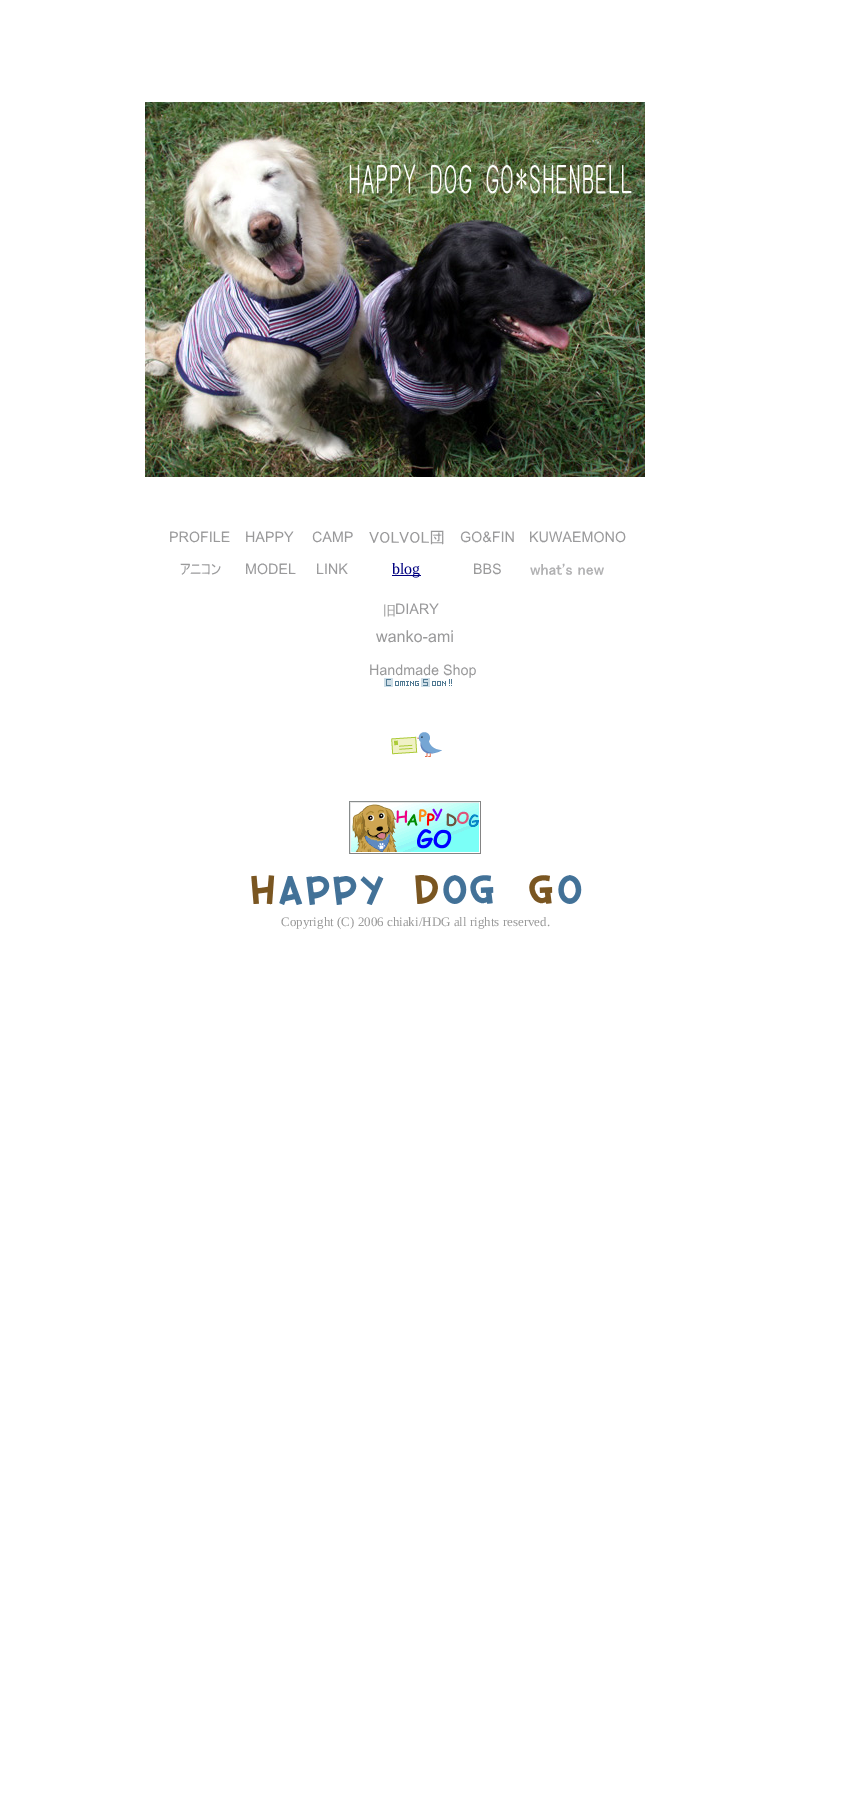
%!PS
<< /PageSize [848 1806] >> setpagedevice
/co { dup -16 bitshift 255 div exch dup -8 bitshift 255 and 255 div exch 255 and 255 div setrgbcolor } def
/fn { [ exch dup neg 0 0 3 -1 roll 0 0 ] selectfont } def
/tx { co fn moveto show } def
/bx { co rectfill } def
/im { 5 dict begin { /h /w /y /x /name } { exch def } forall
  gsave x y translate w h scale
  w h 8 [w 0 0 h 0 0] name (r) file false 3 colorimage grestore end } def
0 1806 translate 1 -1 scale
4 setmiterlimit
0 0 848 1806 16#FFFFFF bx
(media/1.raw) 145 102 500 375 im
(media/2.raw) 170 531 60 12 im
(media/3.raw) 246 531 48 11 im
(media/4.raw) 312 531 41 12 im
(media/5.raw) 369 530 75 15 im
(media/6.raw) 460 531 54 12 im
(media/7.raw) 530 531 96 12 im
(media/8.raw) 180 563 41 12 im
(media/9.raw) 246 563 50 12 im
(media/10.raw) 317 563 31 11 im
392 575 29 1 16#000080 bx
(media/11.raw) 474 563 27 12 im
(media/12.raw) 530 563 74 12 im
(media/13.raw) 396 603 43 11 im
(media/14.raw) 376 630 77 13 im
(media/15.raw) 370 664 106 14 im
(media/16.raw) 384 678 68 9 im
(media/17.raw) 391 732 51 25 im
(media/18.raw) 349 801 132 53 im
(media/19.raw) 251 875 24 30 im
(media/20.raw) 279 876 105 29 im
(media/21.raw) 415 875 23 29 im
(media/22.raw) 443 875 51 29 im
(media/23.raw) 529 875 24 29 im
(media/24.raw) 558 875 24 29 im
(blog) 392 574 /LiberationSerif-Regular 16 16#000080 tx
(旧) 383 615 /WenQuanYiZenHei-Medium 13 16#999999 tx
(Copyright \(C\) 2006 chiaki/HDG all rights reserved.) 281 926 /LiberationSerif-Regular 13 16#999999 tx
showpage
